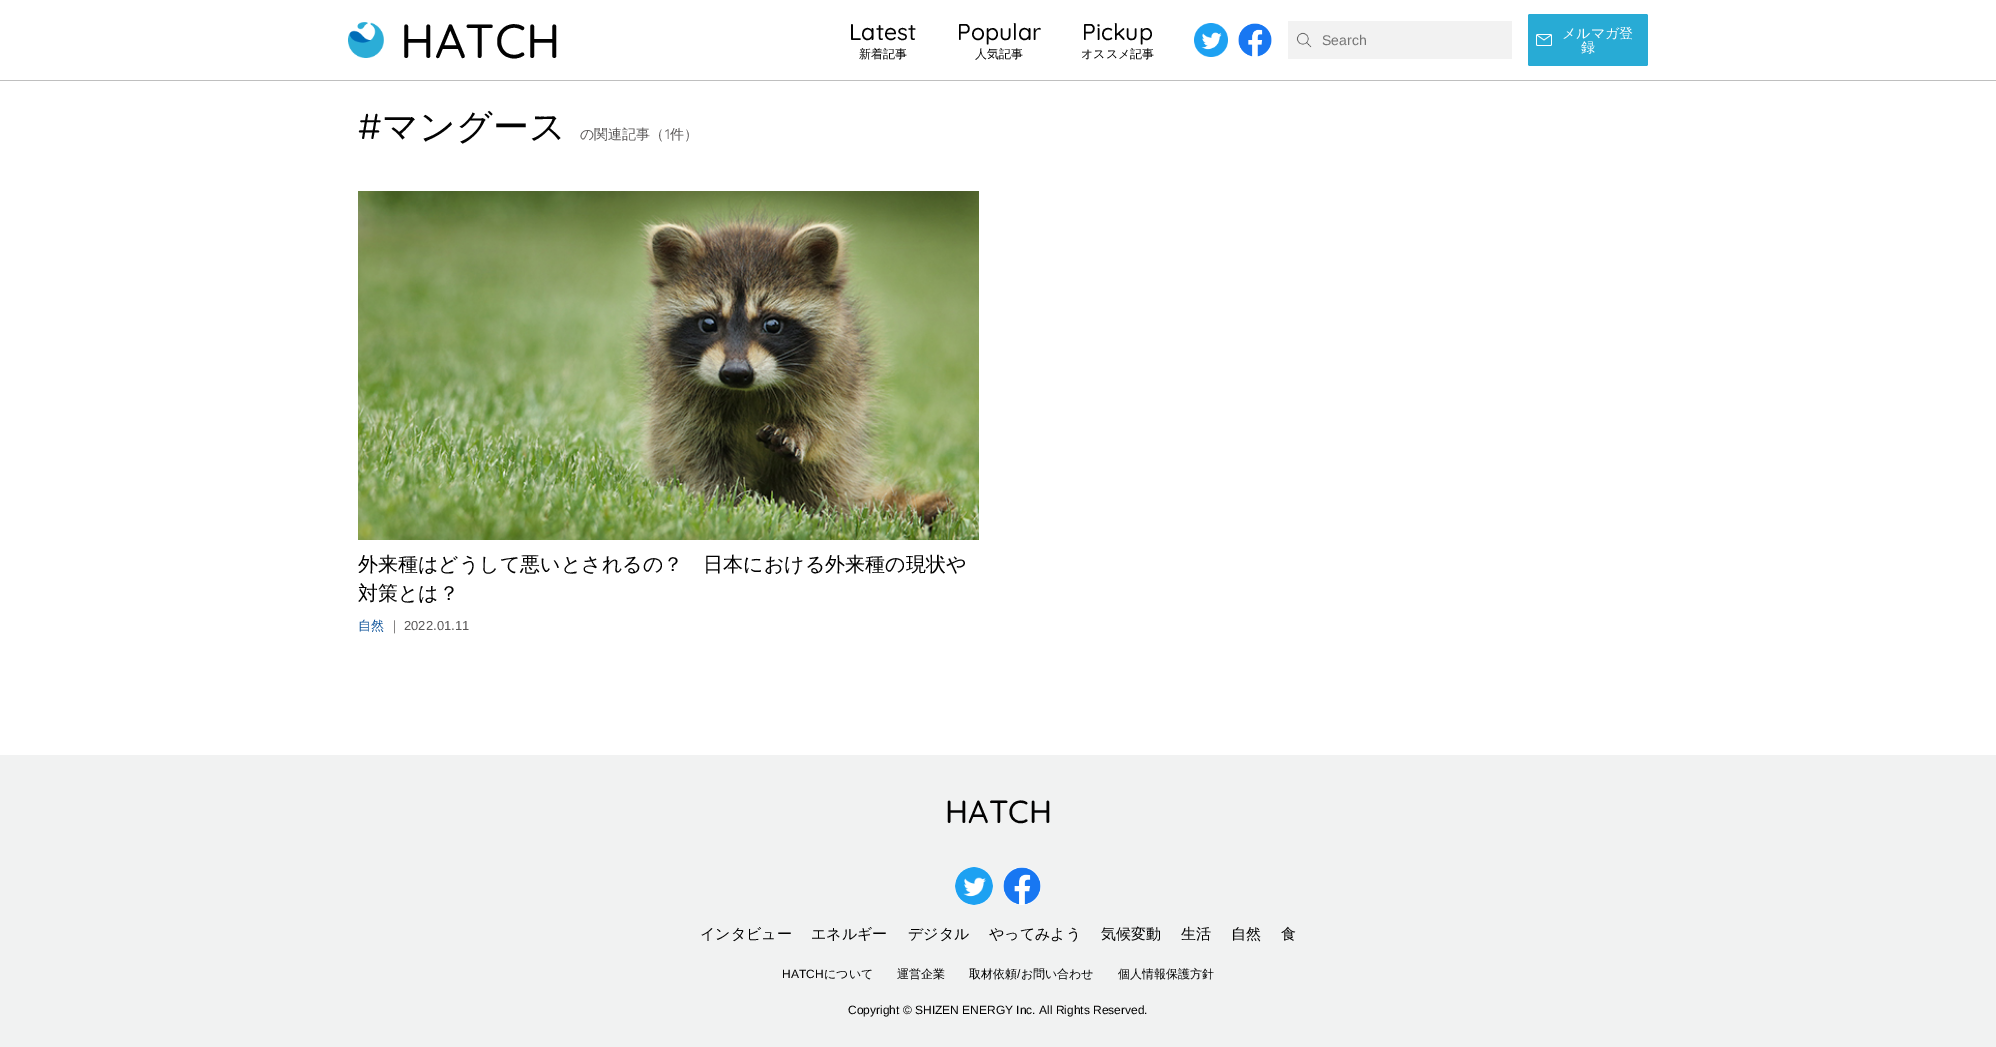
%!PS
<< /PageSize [1996 1047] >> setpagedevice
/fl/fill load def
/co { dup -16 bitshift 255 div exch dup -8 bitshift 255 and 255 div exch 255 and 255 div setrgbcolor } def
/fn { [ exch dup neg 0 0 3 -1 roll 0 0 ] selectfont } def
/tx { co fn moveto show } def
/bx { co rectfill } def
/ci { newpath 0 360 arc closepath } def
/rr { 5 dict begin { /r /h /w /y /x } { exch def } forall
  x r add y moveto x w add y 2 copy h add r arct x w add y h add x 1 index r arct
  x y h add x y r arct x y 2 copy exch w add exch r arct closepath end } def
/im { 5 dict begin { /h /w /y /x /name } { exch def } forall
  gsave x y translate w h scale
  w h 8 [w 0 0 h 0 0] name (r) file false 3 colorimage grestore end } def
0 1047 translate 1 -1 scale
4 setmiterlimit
0 0 1996 1047 16#FFFFFF bx
0 80 1996 1 16#BFBFBF bx
(media/1.raw) 348 22 36 36 im
(media/2.raw) 1194 23 34 34 im
(media/3.raw) 1238 23 34 34 im
1288 21 224 38 16#F2F2F2 bx
(media/4.raw) 1296 32 16 16 im
16#28ABD5 co
1528 14 120 52 2 rr fl
(media/5.raw) 1536 34 16 12 im
(media/6.raw) 358 191 621 349 im
0 755 1996 292 16#F1F2F2 bx
16#FFFFFF co
974 886 19 ci fl
(media/7.raw) 955 867 38 38 im
1022 886 19 ci fl
(media/8.raw) 1003 867 38 38 im
(HATCH) 400 58 /Quicksand-Medium 48 16#020202 tx
(Latest) 849 40 /Quicksand-Medium 23 16#020202 tx
(新着記事) 859 58 /WenQuanYiZenHei-Medium 12 16#020202 tx
(Popular) 957 40 /Quicksand-Medium 23 16#020202 tx
(人気記事) 975 58 /WenQuanYiZenHei-Medium 12 16#020202 tx
(Pickup) 1082 40 /Quicksand-Medium 23 16#020202 tx
(オススメ記事) 1081 58 /WenQuanYiZenHei-Medium 12 16#020202 tx
(Search) 1322 45 /LiberationSans-Regular 14 16#757575 tx
(メルマガ登) 1562 38 /WenQuanYiZenHei-Medium 14 16#FFFFFF tx
(録) 1581 52 /WenQuanYiZenHei-Medium 14 16#FFFFFF tx
(#) 358 139 /Quicksand-Regular 36 16#020202 tx
(マングース) 382 139 /WenQuanYiZenHei-Medium 36 16#020202 tx
(の関連記事（) 580 139 /WenQuanYiZenHei-Medium 14 16#595757 tx
(1) 665 139 /Quicksand-Regular 14 16#595757 tx
(件）) 670 139 /WenQuanYiZenHei-Medium 14 16#595757 tx
(外来種はどうして悪いとされるの？　日本における外来種の現状や) 358 571 /WenQuanYiZenHei-Medium 20 16#020202 tx
(対策とは？) 358 600 /WenQuanYiZenHei-Medium 20 16#020202 tx
(自然) 358 630 /WenQuanYiZenHei-Medium 13 16#0D539A tx
(｜) 388 630 /WenQuanYiZenHei-Medium 13 16#595757 tx
(2022.01.11) 404 630 /LiberationSans-Regular 13 16#595757 tx
(HATCH) 945 823 /Quicksand-Medium 32 16#020202 tx
(インタビュー) 700 939 /WenQuanYiZenHei-Medium 15 16#020202 tx
(エネルギー) 811 939 /WenQuanYiZenHei-Medium 15 16#020202 tx
(デジタル) 908 939 /WenQuanYiZenHei-Medium 15 16#020202 tx
(やってみよう) 989 939 /WenQuanYiZenHei-Medium 15 16#020202 tx
(気候変動) 1101 939 /WenQuanYiZenHei-Medium 15 16#020202 tx
(生活) 1181 939 /WenQuanYiZenHei-Medium 15 16#020202 tx
(自然) 1231 939 /WenQuanYiZenHei-Medium 15 16#020202 tx
(食) 1281 939 /WenQuanYiZenHei-Medium 15 16#020202 tx
(HATCH) 782 978 /LiberationSans-Regular 12 16#020202 tx
(について) 824 978 /WenQuanYiZenHei-Medium 12 16#020202 tx
(運営企業) 897 978 /WenQuanYiZenHei-Medium 12 16#020202 tx
(取材依頼 お問い合わせ) 969 978 /WenQuanYiZenHei-Medium 12 16#020202 tx
(/) 1017 978 /LiberationSans-Regular 12 16#020202 tx
(個人情報保護方針) 1118 978 /WenQuanYiZenHei-Medium 12 16#020202 tx
(Copyright © SHIZEN ENERGY Inc. All Rights Reserved.) 848 1014 /LiberationSans-Regular 12 16#020202 tx
showpage
